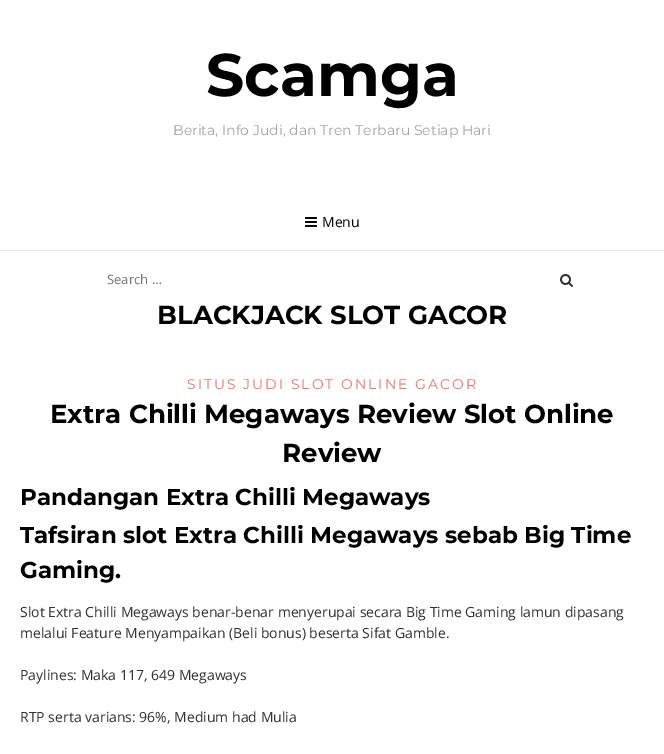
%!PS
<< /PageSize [664 754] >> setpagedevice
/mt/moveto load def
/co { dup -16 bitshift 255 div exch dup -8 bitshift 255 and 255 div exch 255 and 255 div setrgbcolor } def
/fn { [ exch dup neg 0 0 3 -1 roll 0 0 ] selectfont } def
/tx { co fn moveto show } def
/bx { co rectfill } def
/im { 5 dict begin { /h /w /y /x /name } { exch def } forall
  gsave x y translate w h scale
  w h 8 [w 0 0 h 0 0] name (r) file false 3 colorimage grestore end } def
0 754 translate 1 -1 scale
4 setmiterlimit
0 0 664 754 16#FFFFFF bx
(media/1.raw) 305 217 12 10 im
0 250 664 1 16#E8E8E8 bx
(media/2.raw) 560 274 13 13 im
(Scamga) 206 96 /Montserrat-Bold 60 16#000000 tx
(Berita, Info Judi, dan Tren Terbaru Setiap Hari) 173 135 /Montserrat-Regular 14 16#A3A3A3 tx
(Menu) 322 227 /OpenSans-Regular 14 16#000000 tx
(Search …) 107 284 /OpenSans-Regular 13 16#757575 tx
(BLACKJACK SLOT GACOR) 157 324 /Montserrat-Bold 26 16#000000 tx
/Montserrat-Regular 14 fn
16#EC766A co
187 389 mt 2 0 (SITUS JUDI SLOT ONLINE GACOR) ashow
(Extra Chilli Megaways Review Slot Online) 50 423 /Montserrat-Bold 26 16#000000 tx
(Review) 282 462 /Montserrat-Bold 26 16#000000 tx
(Pandangan Extra Chilli Megaways) 20 505 /Montserrat-Bold 23 16#000000 tx
(Tafsiran slot Extra Chilli Megaways sebab Big Time) 20 543 /Montserrat-Bold 23 16#000000 tx
(Gaming.) 20 578 /Montserrat-Bold 23 16#000000 tx
(Slot Extra Chilli Megaways benar-benar menyerupai secara Big Time Gaming lamun dipasang) 20 617 /OpenSans-Regular 14 16#303030 tx
(melalui Feature Menyampaikan \(Beli bonus\) beserta Sifat Gamble.) 20 638 /OpenSans-Regular 14 16#303030 tx
(Paylines: Maka 117, 649 Megaways) 20 680 /OpenSans-Regular 14 16#303030 tx
(RTP serta varians: 96%, Medium had Mulia) 20 722 /OpenSans-Regular 14 16#303030 tx
showpage
